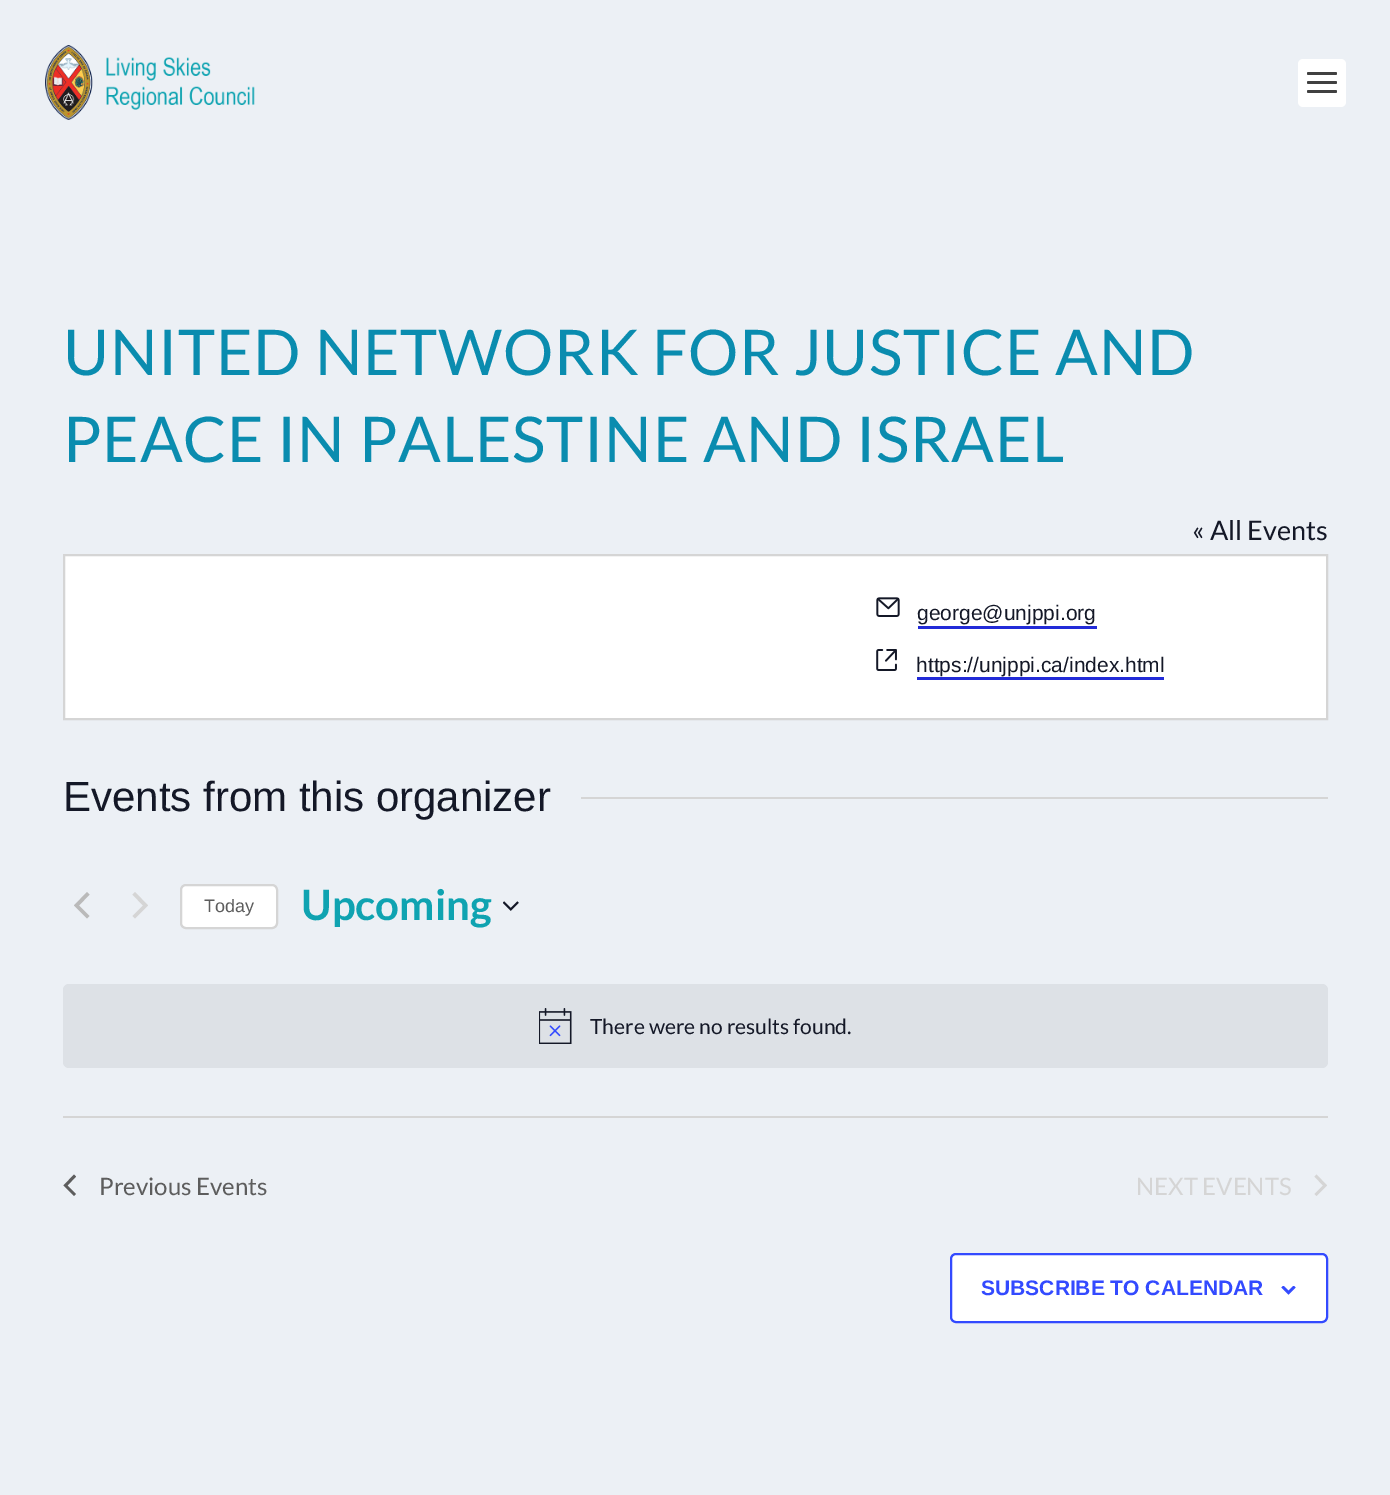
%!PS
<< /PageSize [1390 1495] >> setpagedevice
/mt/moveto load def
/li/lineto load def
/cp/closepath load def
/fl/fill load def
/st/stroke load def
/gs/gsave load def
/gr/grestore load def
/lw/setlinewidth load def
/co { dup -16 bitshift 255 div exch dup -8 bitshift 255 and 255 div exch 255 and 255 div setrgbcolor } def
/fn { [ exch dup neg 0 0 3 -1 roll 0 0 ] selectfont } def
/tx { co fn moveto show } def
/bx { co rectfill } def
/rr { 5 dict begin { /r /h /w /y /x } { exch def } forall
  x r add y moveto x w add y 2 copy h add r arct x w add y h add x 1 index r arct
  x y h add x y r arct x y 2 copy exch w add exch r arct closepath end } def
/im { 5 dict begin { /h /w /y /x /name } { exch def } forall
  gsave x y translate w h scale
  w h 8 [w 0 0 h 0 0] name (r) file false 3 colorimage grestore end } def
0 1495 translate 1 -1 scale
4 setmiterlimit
0 0 1390 1495 16#ECF0F5 bx
(media/1.raw) 45 45 210 75 im
16#FFFFFF co
1298 59 48 48 5 rr fl
16#404040 co
1307 72 30 3 1.5 rr fl
1307 81 30 3 1.5 rr fl
1307 90 30 3 1.5 rr fl
16#FFFFFF co
64 555 mt 1327 555 li 1327 719 li 64 719 li cp gs fl gr
16#D5D5D5 co
2 lw
st
(media/2.raw) 876 597 24 20 im
918 626 179 3 16#222BD8 bx
(media/3.raw) 876 649 21 22 im
917 677 247 3 16#222BD8 bx
581 797 747 2 16#D5D5D5 bx
16#BABABA co
89.5 916 mt 87 918.5 li 74 905.5 li 87 892 li 89.5 894.5 li 79 905.5 li cp fl
16#D5D5D5 co
132.5 894.5 mt 135 892 li 148 905.5 li 135 918.5 li 132.5 916 li 143 905.5 li cp fl
16#FFFFFF co
181 885 96 43 5 rr gs fl gr
16#D5D5D5 co
st
(media/4.raw) 503 901 16 10 im
16#DDE1E6 co
63 984 1265 84 6 rr fl
(media/5.raw) 539 1008 33 36 im
63 1116 1265 2 16#D5D5D5 bx
16#5D5D5D co
76 1194 mt 74 1196 li 63.5 1185.5 li 74 1174.5 li 76 1176.5 li 67.5 1185.5 li cp fl
16#D5D5D5 co
1314.5 1176.5 mt 1316.5 1174.5 li 1327 1185.5 li 1316.5 1196 li 1314.5 1194 li 1323 1185.5 li cp fl
16#FFFFFF co
951 1254 376 68 5 rr gs fl gr
16#334AFF co
st
(media/6.raw) 1281 1286 15 9 im
/Lato-Regular 63 fn
16#0A8CAF co
63 375 mt .75 0 (UNITED NETWORK FOR JUSTICE AND) ashow
63 462 mt .75 0 (PEACE IN PALESTINE AND ISRAEL) ashow
(« All Events) 1192 540 /Lato-Regular 27 16#141827 tx
(george@unjppi.org) 917 620 /LiberationSans-Regular 21 16#141827 tx
(https://unjppi.ca/index.html) 916 672 /LiberationSans-Regular 21 16#141827 tx
(Events from this organizer) 63 811 /LiberationSans-Regular 42 16#141827 tx
(Today) 204 912 /LiberationSans-Regular 18 16#5D5D5D tx
(Upcoming) 301 920 /Lato-Bold 42 16#0FA3B1 tx
(There were no results found.) 590 1034 /Lato-Regular 21 16#141827 tx
(Previous Events) 99 1195 /Lato-Regular 24 16#5D5D5D tx
(NEXT EVENTS) 1136 1195 /Lato-Regular 24 16#D5D5D5 tx
(SUBSCRIBE TO CALENDAR) 981 1295 /LiberationSans-Bold 21 16#334AFF tx
showpage
